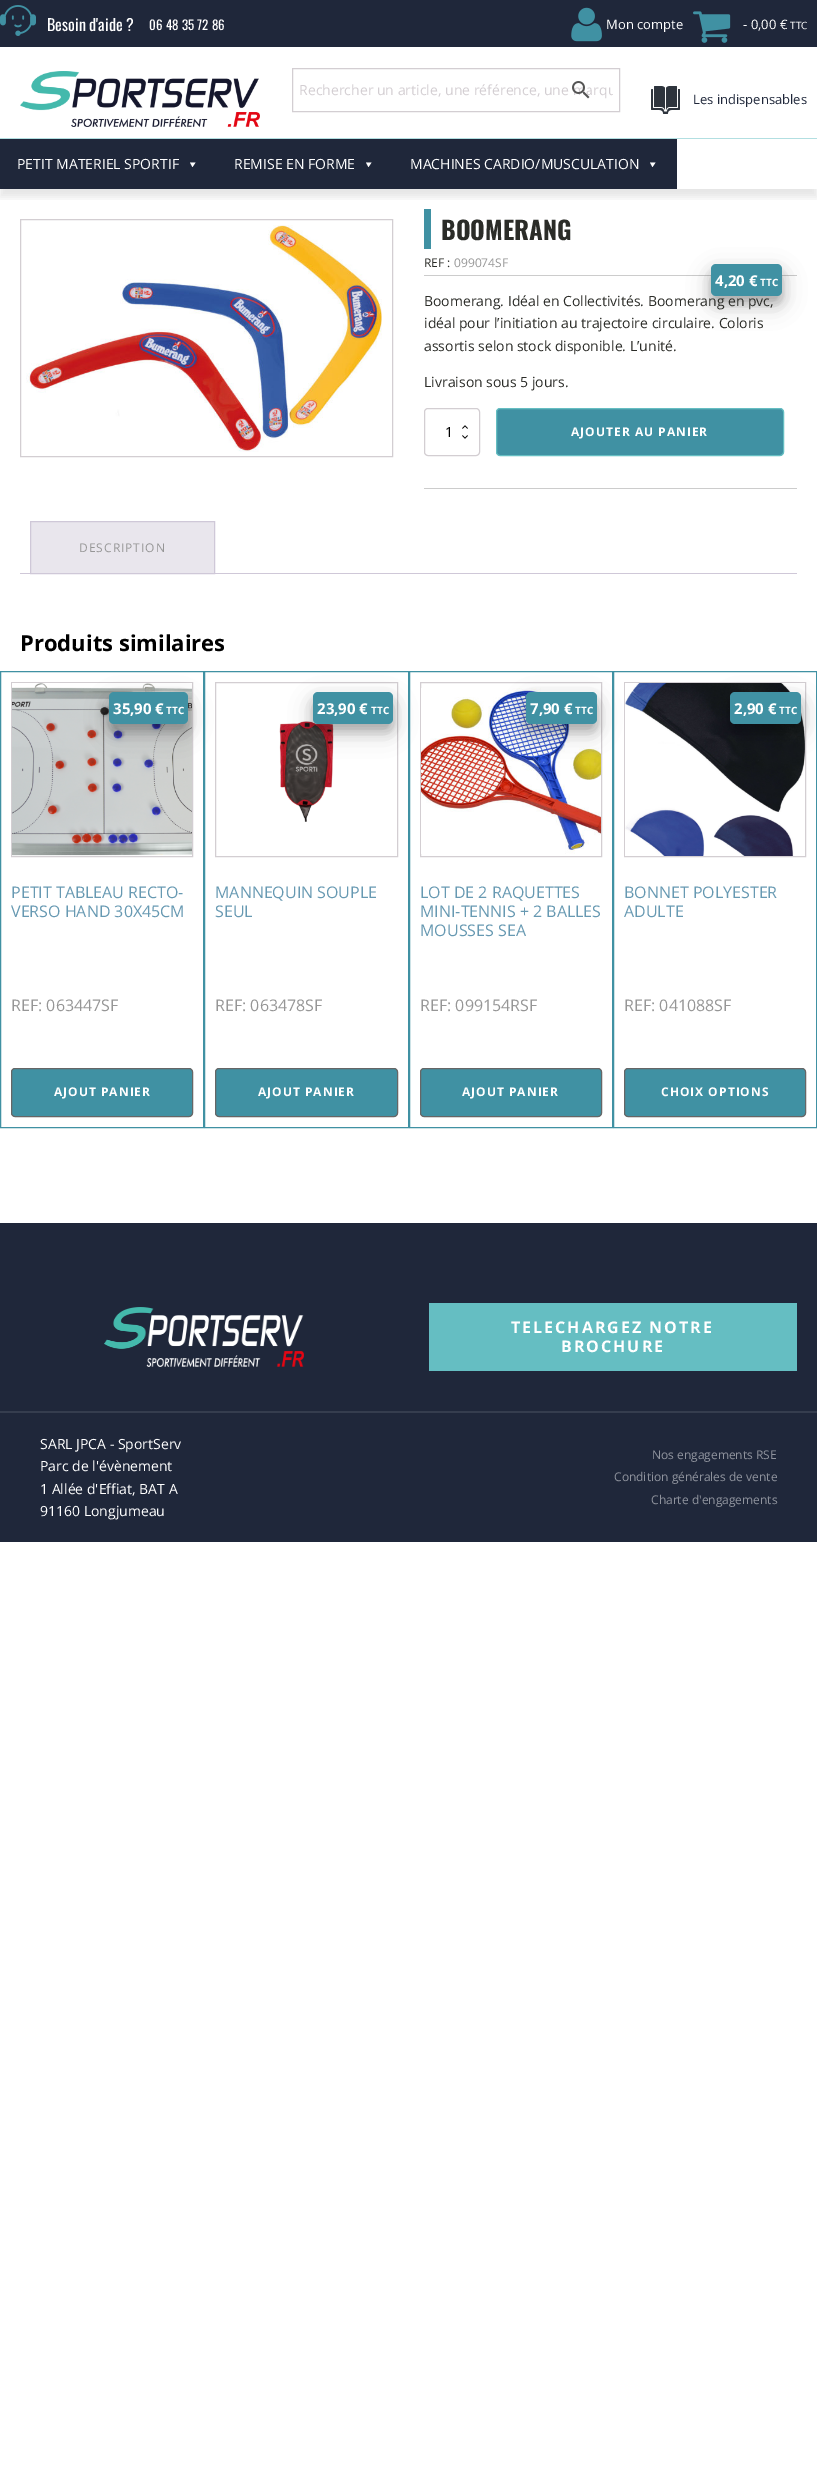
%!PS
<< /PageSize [817 2478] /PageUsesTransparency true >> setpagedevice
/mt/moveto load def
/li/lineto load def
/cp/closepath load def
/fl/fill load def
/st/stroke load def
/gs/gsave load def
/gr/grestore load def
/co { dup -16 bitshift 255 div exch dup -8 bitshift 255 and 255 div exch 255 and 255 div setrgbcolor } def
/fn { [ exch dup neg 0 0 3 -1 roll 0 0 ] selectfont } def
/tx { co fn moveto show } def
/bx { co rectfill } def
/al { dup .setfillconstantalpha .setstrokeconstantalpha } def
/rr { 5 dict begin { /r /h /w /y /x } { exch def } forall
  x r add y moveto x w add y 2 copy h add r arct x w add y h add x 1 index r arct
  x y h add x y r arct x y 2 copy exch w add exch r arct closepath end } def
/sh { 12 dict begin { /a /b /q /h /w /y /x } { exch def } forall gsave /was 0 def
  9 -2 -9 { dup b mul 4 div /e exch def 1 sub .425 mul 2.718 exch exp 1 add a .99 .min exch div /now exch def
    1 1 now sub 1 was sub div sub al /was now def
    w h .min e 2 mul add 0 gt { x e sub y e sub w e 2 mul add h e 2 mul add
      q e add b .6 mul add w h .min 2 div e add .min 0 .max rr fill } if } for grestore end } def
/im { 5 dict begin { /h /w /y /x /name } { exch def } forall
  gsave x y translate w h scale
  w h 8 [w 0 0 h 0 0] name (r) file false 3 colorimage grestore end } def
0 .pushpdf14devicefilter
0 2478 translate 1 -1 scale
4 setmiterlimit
0 0 817 2478 16#FFFFFF bx
gs
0 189 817 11 rectclip
16#000000 co
0 28 817 169 0 4 .1 sh
gr
0 0 817 47 16#1F273A bx
(media/1.raw) 0 5 36 31 im
(media/2.raw) 571 7 31 35 im
(media/3.raw) 693 11 38 32 im
0 138 817 1 16#B2DFE1 bx
(media/4.raw) 20 71 240 56 im
16#D3CED2 co
292.5 68.5 327 43 rectstroke
(media/6.raw) 651 86 29 28 im
0 139 677 50 16#1F273A bx
16#FFFFFF co
195.5 162.5 mt 192.5 167 li 190 162.5 li cp fl
371.5 162.5 mt 368.5 167 li 366 162.5 li cp fl
655.5 162.5 mt 652.5 167 li 650 162.5 li cp fl
16#D3CED2 co
20.5 219.5 372 237 rectstroke
(media/7.raw) 26 225 356 227 im
424 209 7 40 16#4091A3 bx
424 275 373 1 16#CCCCCC bx
424 488 373 1 16#CCCCCC bx
16#000000 co
711 273 71 32 5 11.5 .19 sh
711 271 71 32 5 5.5 .2 sh
(media/8.raw) 462 425 6 4 im
(media/9.raw) 462 435 6 4 im
16#D3CED2 co
424.5 408.5 55 47 3.5 rr st
16#4091A3 co
496.5 408.5 287 47 3.5 rr gs fl gr
16#65BEC2 co
st
16#E9E6ED co
30.5 521.5 mt 214.5 521.5 li 214.5 573.5 li 30.5 573.5 li cp gs fl gr
16#CFC8D8 co
st
20 573 777 1 16#CFC8D8 bx
16#4091A3 co
.5 671.5 203 456 rectstroke
16#D3CED2 co
11.5 682.5 181 174 rectstroke
(media/10.raw) 12 683 180 173 im
16#000000 co
109 701 79 32 5 11.5 .19 sh
109 699 79 32 5 5.5 .2 sh
16#4091A3 co
109 692 79 32 5 rr fl
11.5 1068.5 181 48 3.5 rr gs fl gr
16#666666 co
st
16#4091A3 co
204.5 671.5 204 456 rectstroke
16#D3CED2 co
215.5 682.5 182 174 rectstroke
(media/11.raw) 279 721 55 101 im
16#000000 co
313 701 80 32 5 11.5 .19 sh
313 699 80 32 5 5.5 .2 sh
16#4091A3 co
313 692 80 32 5 rr fl
215.5 1068.5 182 48 3.5 rr gs fl gr
16#666666 co
st
16#4091A3 co
409.5 671.5 203 456 rectstroke
16#D3CED2 co
420.5 682.5 181 174 rectstroke
(media/12.raw) 421 688 180 166 im
16#000000 co
526 701 71 32 5 11.5 .19 sh
526 699 71 32 5 5.5 .2 sh
16#4091A3 co
526 692 71 32 5 rr fl
420.5 1068.5 181 48 3.5 rr gs fl gr
16#666666 co
st
16#4091A3 co
613.5 671.5 203 456 rectstroke
16#D3CED2 co
624.5 682.5 181 174 rectstroke
(media/13.raw) 625 683 180 173 im
16#000000 co
730 701 71 32 5 11.5 .19 sh
730 699 71 32 5 5.5 .2 sh
16#4091A3 co
730 692 71 32 5 rr fl
624.5 1068.5 181 48 3.5 rr gs fl gr
16#666666 co
st
0 1223 817 319 16#1F273A bx
0 1411 817 2 16#353D4E bx
(media/14.raw) 104 1307 200 60 im
429 1303 368 68 16#65BEC2 bx
(Besoin d'aide ?) 47 31 /Oswald-Regular 16 16#FFFFFF tx
/Oswald-Regular 13 fn
149 30 mt .1 0 (06 48 35 72 86) ashow
(Mon compte) 606 29 /OpenSans-Regular 13 16#FFFFFF tx
(- 0,00 €) 743 29 /OpenSans-Regular 13 16#FFFFFF tx
(TTC) 790 29 /OpenSans-Regular 10 16#FFFFFF tx
gs
299 80 314 19 rectclip
(Rechercher un article, une référence, une marqu) 299 95 /OpenSans-Regular 14 16#D3CED2 tx
gr
(media/5.raw) 572 81 18 18 im
(Les indispensables) 693 104 /OpenSans-Regular 13 16#1F273A tx
(PETIT MATERIEL SPORTIF) 17 169 /OpenSans-Regular 14 16#FFFFFF tx
(REMISE EN FORME) 234 169 /OpenSans-Regular 14 16#FFFFFF tx
(MACHINES CARDIO/MUSCULATION) 410 169 /OpenSans-Regular 14 16#FFFFFF tx
(BOOMERANG) 441 240 /Oswald-Bold 25 16#2B2C28 tx
(REF :) 424 267 /OpenSans-Regular 12 16#2B2C28 tx
(099074SF) 454 267 /OpenSans-Regular 12 16#969696 tx
(Boomerang. Idéal en Collectivités. Boomerang en pvc,) 424 306 /OpenSans-Regular 14 16#2B2C28 tx
16#4091A3 co
711 264 71 32 5 rr fl
(TTC) 760 286 /OpenSans-Bold 10 16#FFFFFF tx
(4,20 €) 715 286 /OpenSans-Bold 15 16#FFFFFF tx
(idéal pour l’initiation au trajectoire circulaire. Coloris) 424 328 /OpenSans-Regular 14 16#2B2C28 tx
(assortis selon stock disponible. L’unité.) 424 351 /OpenSans-Regular 14 16#2B2C28 tx
(Livraison sous 5 jours.) 424 387 /OpenSans-Regular 14 16#2B2C28 tx
(1) 445 437 /OpenSans-Regular 14 16#000000 tx
/OpenSans-Bold 12 fn
16#FFFFFF co
571 436 mt 1 0 (AJOUTER AU PANIER) ashow
/OpenSans-Regular 12 fn
16#969696 co
79 552 mt 1 0 (DESCRIPTION) ashow
(Produits similaires) 20 651 /OpenSans-Bold 22 16#000000 tx
(35,90 €) 113 714 /OpenSans-Bold 15 16#FFFFFF tx
(TTC) 166 714 /OpenSans-Bold 10 16#FFFFFF tx
(PETIT TABLEAU RECTO-) 11 898 /OpenSans-Regular 16 16#6799B2 tx
(VERSO HAND 30X45CM) 11 917 /OpenSans-Regular 16 16#6799B2 tx
(REF: 063447SF) 11 1011 /OpenSans-Regular 16 16#969696 tx
/OpenSans-Bold 12 fn
16#FFFFFF co
54 1096 mt 1 0 (AJOUT PANIER) ashow
(23,90 €) 317 714 /OpenSans-Bold 15 16#FFFFFF tx
(TTC) 371 714 /OpenSans-Bold 10 16#FFFFFF tx
(MANNEQUIN SOUPLE) 215 898 /OpenSans-Regular 16 16#6799B2 tx
(SEUL) 215 917 /OpenSans-Regular 16 16#6799B2 tx
(REF: 063478SF) 215 1011 /OpenSans-Regular 16 16#969696 tx
/OpenSans-Bold 12 fn
16#FFFFFF co
258 1096 mt 1 0 (AJOUT PANIER) ashow
(7,90 €) 530 714 /OpenSans-Bold 15 16#FFFFFF tx
(TTC) 575 714 /OpenSans-Bold 10 16#FFFFFF tx
(LOT DE 2 RAQUETTES) 420 898 /OpenSans-Regular 16 16#6799B2 tx
(MINI-TENNIS + 2 BALLES) 420 917 /OpenSans-Regular 16 16#6799B2 tx
(MOUSSES SEA) 420 936 /OpenSans-Regular 16 16#6799B2 tx
(REF: 099154RSF) 420 1011 /OpenSans-Regular 16 16#969696 tx
/OpenSans-Bold 12 fn
16#FFFFFF co
462 1096 mt 1 0 (AJOUT PANIER) ashow
(2,90 €) 734 714 /OpenSans-Bold 15 16#FFFFFF tx
(TTC) 779 714 /OpenSans-Bold 10 16#FFFFFF tx
(BONNET POLYESTER) 624 898 /OpenSans-Regular 16 16#6799B2 tx
(ADULTE) 624 917 /OpenSans-Regular 16 16#6799B2 tx
(REF: 041088SF) 624 1011 /OpenSans-Regular 16 16#969696 tx
/OpenSans-Bold 12 fn
16#FFFFFF co
661 1096 mt 1 0 (CHOIX OPTIONS) ashow
/OpenSans-Bold 16 fn
511 1333 mt 2 0 (TELECHARGEZ NOTRE) ashow
561 1352 mt 2 0 (BROCHURE) ashow
(SARL JPCA - SportServ) 40 1449 /OpenSans-Regular 14 16#FFFFFF tx
(Parc de l'évènement) 40 1471 /OpenSans-Regular 14 16#FFFFFF tx
(1 Allée d'Effiat, BAT A) 40 1494 /OpenSans-Regular 14 16#FFFFFF tx
(91160 Longjumeau) 40 1516 /OpenSans-Regular 14 16#FFFFFF tx
(Nos engagements RSE) 652 1459 /OpenSans-Regular 12 16#8F939D tx
(Condition générales de vente) 614 1481 /OpenSans-Regular 12 16#8F939D tx
(Charte d'engagements) 651 1504 /OpenSans-Regular 12 16#8F939D tx
.poppdf14devicefilter showpage
